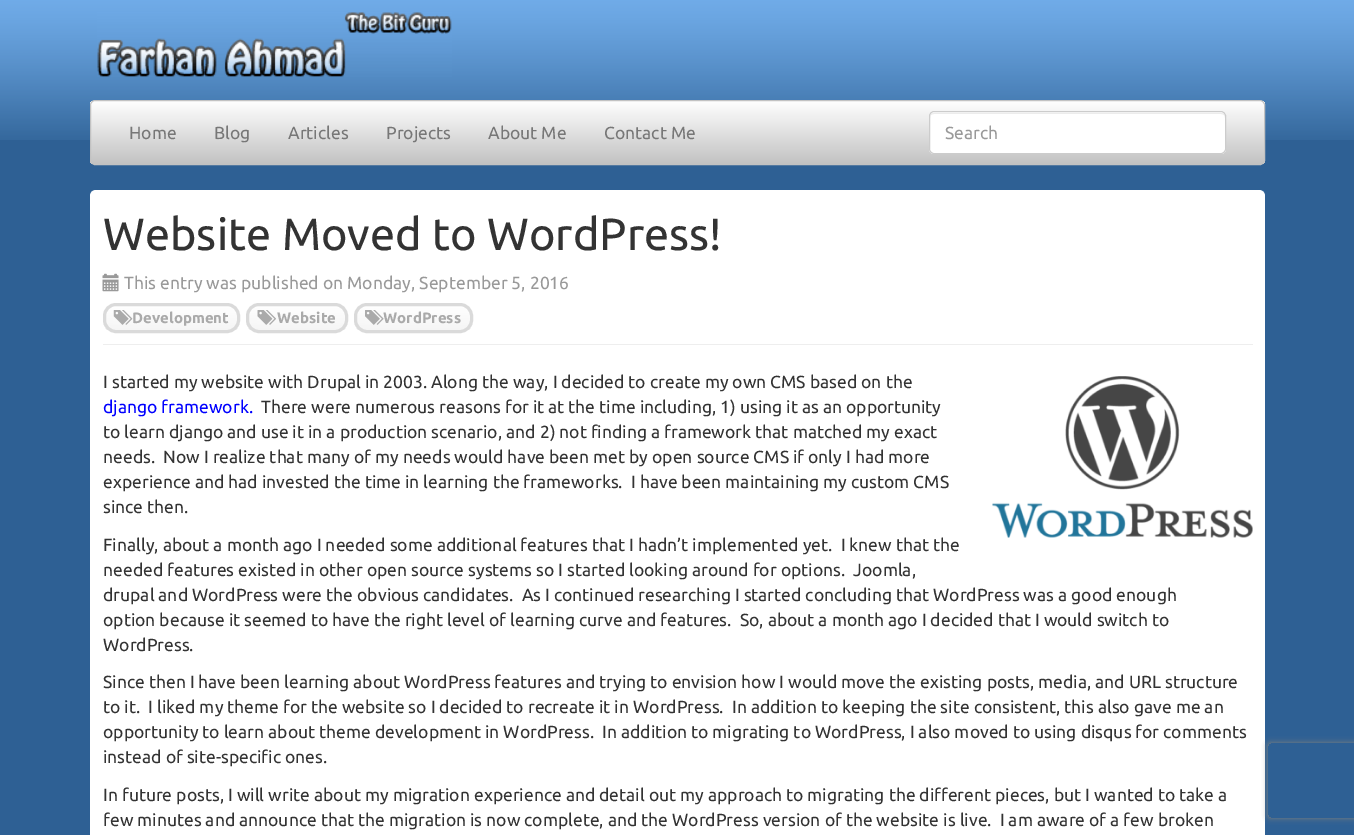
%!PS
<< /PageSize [1354 835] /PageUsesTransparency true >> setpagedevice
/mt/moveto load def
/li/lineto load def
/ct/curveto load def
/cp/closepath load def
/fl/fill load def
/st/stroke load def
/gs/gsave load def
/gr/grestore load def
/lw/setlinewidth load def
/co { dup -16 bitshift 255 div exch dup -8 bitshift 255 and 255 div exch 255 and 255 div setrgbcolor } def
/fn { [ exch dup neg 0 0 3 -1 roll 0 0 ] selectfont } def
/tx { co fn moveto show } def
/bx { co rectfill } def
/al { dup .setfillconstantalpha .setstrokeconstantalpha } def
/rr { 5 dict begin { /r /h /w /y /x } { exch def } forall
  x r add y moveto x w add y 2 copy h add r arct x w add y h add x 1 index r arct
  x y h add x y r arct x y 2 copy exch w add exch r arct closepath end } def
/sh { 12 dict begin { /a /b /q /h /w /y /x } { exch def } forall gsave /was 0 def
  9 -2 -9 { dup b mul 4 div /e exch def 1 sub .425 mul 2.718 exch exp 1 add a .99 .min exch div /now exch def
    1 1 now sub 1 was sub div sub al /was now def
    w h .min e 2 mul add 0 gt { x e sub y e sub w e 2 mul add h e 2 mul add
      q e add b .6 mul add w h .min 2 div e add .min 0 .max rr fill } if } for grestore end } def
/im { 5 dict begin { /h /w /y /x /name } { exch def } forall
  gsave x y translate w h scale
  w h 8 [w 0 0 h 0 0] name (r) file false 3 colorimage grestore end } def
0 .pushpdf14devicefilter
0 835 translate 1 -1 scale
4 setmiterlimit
0 0 1354 835 16#2E6094 bx
(media/1.raw) 0 0 1354 140 im
(media/2.raw) 97 12 355 65 im
gs
90 100 1175 65 5 rr clip newpath
gs 90 101 mt 1265 101 li 1265 164 li 90 164 li cp clip newpath
<< /ShadingType 2 /ColorSpace /DeviceRGB /Coords [678 101 678 164] /Extend [true true] /Function << /FunctionType 2 /Domain [0 1] /C0 [1 1 1] /C1 [.761 .761 .761] /N 1 >> >> shfill gr
gr
16#C2C2C2 co
90.5 100.5 1174 64 4.5 rr st
16#FFFFFF co
929 111 297 43 5 rr fl
16#ECECEC co
934 114 mt 1221 114 li 1223 114 1225 115 1225 118 ct 1225 115 1224 113 1221 113 ct 934 113 li 931 113 930 115 930 118 ct 930 115 932 114 934 114 ct cp fl
16#CCCCCC co
929.5 111.5 296 42 4.5 rr st
16#FFFFFF co
96 190 mt 1259 190 li 1262.5 190 1265 192.5 1265 196 ct 1265 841 li 90 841 li 90 196 li 90 192.5 92.5 190 96 190 ct cp fl
103 344 1150 1 16#EEEEEE bx
(media/3.raw) 102 273 17 19 im
gs
103 303 137 30 13 rr clip newpath
gs 103 305 mt 240 305 li 240 330 li 103 330 li cp clip newpath
<< /ShadingType 2 /ColorSpace /DeviceRGB /Coords [171 305 171 330] /Extend [true true] /Function << /FunctionType 2 /Domain [0 1] /C0 [1 1 1] /C1 [.961 .961 .961] /N 1 >> >> shfill gr
gr
16#DADADA co
3 lw
104.5 304.5 134 27 11.5 rr st
(media/4.raw) 113 310 20 15 im
gs
246 303 102 30 13 rr clip newpath
gs 246 305 mt 348 305 li 348 330 li 246 330 li cp clip newpath
<< /ShadingType 2 /ColorSpace /DeviceRGB /Coords [297 305 297 330] /Extend [true true] /Function << /FunctionType 2 /Domain [0 1] /C0 [1 1 1] /C1 [.961 .961 .961] /N 1 >> >> shfill gr
gr
247.5 304.5 99 27 11.5 rr st
(media/5.raw) 257 310 19 15 im
gs
354 303 119 30 13 rr clip newpath
gs 354 305 mt 473 305 li 473 330 li 354 330 li cp clip newpath
<< /ShadingType 2 /ColorSpace /DeviceRGB /Coords [413 305 413 330] /Extend [true true] /Function << /FunctionType 2 /Domain [0 1] /C0 [1 1 1] /C1 [.961 .961 .961] /N 1 >> >> shfill gr
gr
355.5 304.5 116 27 11.5 rr st
(media/7.raw) 992 376 261 162 im
gs
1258 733 mt 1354 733 li 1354 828 li 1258 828 li cp 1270.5 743 mt 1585.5 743 li 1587 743 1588 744 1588 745.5 ct 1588 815.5 li 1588 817 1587 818 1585.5 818 ct 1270.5 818 li 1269 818 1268 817 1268 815.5 ct 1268 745.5 li 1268 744 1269 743 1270.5 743 ct cp eoclip newpath
16#808080 co
1268 743 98 75 2.5 3 1 sh
gr
(Home) 129 139 /Ubuntu-Regular 17.5 16#777777 tx
(Blog) 214 139 /Ubuntu-Regular 17.5 16#777777 tx
(Articles) 288 139 /Ubuntu-Regular 17.5 16#777777 tx
(Projects) 386 139 /Ubuntu-Regular 17.5 16#777777 tx
(About Me) 488 139 /Ubuntu-Regular 17.5 16#777777 tx
(Contact Me) 604 139 /Ubuntu-Regular 17.5 16#777777 tx
(Search) 945 139 /Ubuntu-Regular 17.5 16#999999 tx
(Website Moved to WordPress!) 103 250 /Ubuntu-Regular 45 16#333333 tx
(This entry was published on Monday, September 5, 2016) 124 289 /Ubuntu-Regular 17.5 16#999999 tx
(Development) 132 323 /Ubuntu-Bold 15 16#AAAAAA tx
(Website) 277 323 /Ubuntu-Bold 15 16#AAAAAA tx
(WordPress) 383 323 /Ubuntu-Bold 15 16#AAAAAA tx
(media/6.raw) 365 310 19 15 im
(I started my website with Drupal in 2003. Along the way, I decided to create my own CMS based on the) 103 388 /Ubuntu-Regular 17.5 16#333333 tx
(django framework.) 103 413 /Ubuntu-Regular 17.5 16#0000FF tx
(There were numerous reasons for it at the time including, 1\) using it as an opportunity) 261 413 /Ubuntu-Regular 17.5 16#333333 tx
(to learn django and use it in a production scenario, and 2\) not finding a framework that matched my exact) 103 438 /Ubuntu-Regular 17.5 16#333333 tx
(needs.  Now I realize that many of my needs would have been met by open source CMS if only I had more) 103 463 /Ubuntu-Regular 17.5 16#333333 tx
(experience and had invested the time in learning the frameworks.  I have been maintaining my custom CMS) 103 488 /Ubuntu-Regular 17.5 16#333333 tx
(since then.) 103 513 /Ubuntu-Regular 17.5 16#333333 tx
(Finally, about a month ago I needed some additional features that I hadn’t implemented yet.  I knew that the) 103 551 /Ubuntu-Regular 17.5 16#333333 tx
(needed features existed in other open source systems so I started looking around for options.  Joomla,) 103 576 /Ubuntu-Regular 17.5 16#333333 tx
(drupal and WordPress were the obvious candidates.  As I continued researching I started concluding that WordPress was a good enough) 103 601 /Ubuntu-Regular 17.5 16#333333 tx
(option because it seemed to have the right level of learning curve and features.  So, about a month ago I decided that I would switch to) 103 626 /Ubuntu-Regular 17.5 16#333333 tx
(WordPress.) 103 651 /Ubuntu-Regular 17.5 16#333333 tx
(Since then I have been learning about WordPress features and trying to envision how I would move the existing posts, media, and URL structure) 103 688 /Ubuntu-Regular 17.5 16#333333 tx
(to it.  I liked my theme for the website so I decided to recreate it in WordPress.  In addition to keeping the site consistent, this also gave me an) 103 713 /Ubuntu-Regular 17.5 16#333333 tx
(opportunity to learn about theme development in WordPress.  In addition to migrating to WordPress, I also moved to using disqus for comments) 103 738 /Ubuntu-Regular 17.5 16#333333 tx
(instead of site-specific ones.) 103 763 /Ubuntu-Regular 17.5 16#333333 tx
(In future posts, I will write about my migration experience and detail out my approach to migrating the different pieces, but I wanted to take a) 103 801 /Ubuntu-Regular 17.5 16#333333 tx
(few minutes and announce that the migration is now complete, and the WordPress version of the website is live.  I am aware of a few broken) 103 826 /Ubuntu-Regular 17.5 16#333333 tx
.poppdf14devicefilter showpage
